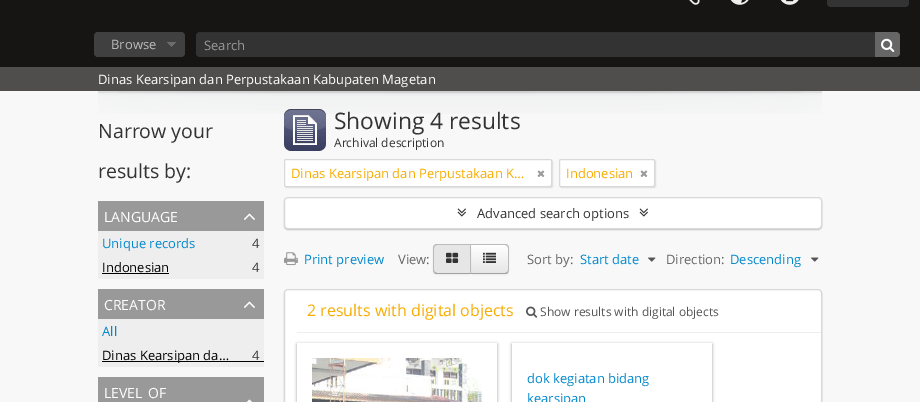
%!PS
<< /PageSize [920 402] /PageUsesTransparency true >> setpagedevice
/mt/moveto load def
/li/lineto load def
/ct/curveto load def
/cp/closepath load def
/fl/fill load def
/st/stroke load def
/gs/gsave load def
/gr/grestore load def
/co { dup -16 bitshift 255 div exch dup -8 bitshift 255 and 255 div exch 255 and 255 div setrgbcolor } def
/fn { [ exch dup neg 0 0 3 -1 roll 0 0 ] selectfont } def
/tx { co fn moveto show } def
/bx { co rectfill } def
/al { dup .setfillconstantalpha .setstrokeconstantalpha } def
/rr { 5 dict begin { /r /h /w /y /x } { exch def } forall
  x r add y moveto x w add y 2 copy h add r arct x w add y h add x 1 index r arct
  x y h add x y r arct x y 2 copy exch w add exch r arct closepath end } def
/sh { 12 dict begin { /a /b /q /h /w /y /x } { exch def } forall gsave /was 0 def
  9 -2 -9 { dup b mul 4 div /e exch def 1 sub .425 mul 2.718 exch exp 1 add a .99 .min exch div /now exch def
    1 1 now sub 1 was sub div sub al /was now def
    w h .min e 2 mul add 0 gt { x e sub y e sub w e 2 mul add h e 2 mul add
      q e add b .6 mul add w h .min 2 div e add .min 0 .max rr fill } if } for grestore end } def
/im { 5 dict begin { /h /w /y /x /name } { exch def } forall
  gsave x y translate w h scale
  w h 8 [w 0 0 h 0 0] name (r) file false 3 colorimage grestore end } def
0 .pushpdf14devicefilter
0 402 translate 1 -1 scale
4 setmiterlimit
0 0 920 402 16#F8F8F8 bx
0 0 920 67 16#161514 bx
(media/1.raw) 689 0 11 5 im
(media/2.raw) 730 0 19 5 im
(media/3.raw) 780 0 19 5 im
16#333333 co
827 -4 82 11 4 rr fl
16#404040 co
94 32 91 25 4 rr fl
(media/4.raw) 167 42 9 5 im
16#333333 co
196 32 704 25 4 rr fl
0.07 al
16#000000 co
200 33 mt 896 33 li 898 33 900 35 900 37 ct 900 34 899 32 896 32 ct 200 32 li 197 33 li 196 34 li 196 37 li 196 35 198 33 200 33 ct cp fl
1 al
16#666666 co
875 32 mt 896 32 li 898 32 900 34 900 36 ct 900 53 li 900 55 898 57 896 57 ct 875 57 li cp fl
(media/5.raw) 881 38 14 14 im
0 67 920 24 16#4F4E4D bx
(media/6.raw) 98 91 724 23 im
98 201 166 30 16#999999 bx
(media/7.raw) 244 213 11 7 im
98 231 166 48 16#EEEEEE bx
102 273 67 1 16#000000 bx
98 289 166 30 16#999999 bx
(media/7.raw) 244 301 11 7 im
98 319 166 48 16#EEEEEE bx
102 361 162 1 16#000000 bx
98 377 166 25 16#999999 bx
(media/8.raw) 247 399 5 3 im
(media/9.raw) 284 109 42 42 im
16#000000 co
285 160 268 28 2 .5 .1 sh
16#FFFFFF co
284.5 159.5 267 27 1.5 rr gs fl gr
16#D9D9D9 co
st
(media/10.raw) 537 170 8 7 im
16#000000 co
560 160 96 28 2 .5 .1 sh
16#FFFFFF co
559.5 159.5 95 27 1.5 rr gs fl gr
16#D9D9D9 co
st
(media/10.raw) 640 170 8 7 im
16#000000 co
284 198 538 32 4 .5 .2 sh
16#FFFFFF co
284.5 197.5 537 31 3.5 rr gs fl gr
16#D9D9D9 co
st
(media/11.raw) 457 208 9 9 im
(media/11.raw) 639 208 9 9 im
(media/12.raw) 284 252 14 14 im
16#000000 co
470 245 39 30 4 1 .05 sh
gs
470 244 mt 505 244 li 507 244 509 246 509 248 ct 509 270 li 509 272 507 274 505 274 ct 470 274 li cp clip newpath
gs 471 245 mt 509 245 li 509 273 li 471 273 li cp clip newpath
<< /ShadingType 2 /ColorSpace /DeviceRGB /Coords [490 245 490 273] /Extend [true true] /Function << /FunctionType 2 /Domain [0 1] /C0 [1 1 1] /C1 [.902 .902 .902] /N 1 >> >> shfill gr
gr
16#BBBBBB co
470 244 mt 471 245 li 505 245 li 506 245 506.5 245.5 507 246 ct 508 245 li 507 244.5 506 244 505 244 ct cp fl
509 270 mt 509 248 li 509 247 508.5 246 508 245 ct 507 246 li 507.5 246.5 508 247 508 248 ct 508 270 li 508 271 507.5 271.5 507 272 ct 508 273 li 508.5 272 509 271 509 270 ct cp fl
16#A2A2A2 co
505 274 mt 506 274 507 273.5 508 273 ct 507 272 li 506.5 272.5 506 273 505 273 ct 471 273 li 470 274 li cp fl
16#000000 co
433 245 38 30 4 1 .05 sh
16#E6E6E6 co
437 244 mt 471 244 li 471 274 li 437 274 li 435 274 433 272 433 270 ct 433 248 li 433 246 435 244 437 244 ct cp fl
16#BBBBBB co
437 244 mt 436 244 435 244.5 434 245 ct 435 246 li 435.5 245.5 436 245 437 245 ct 470 245 li 471 244 li cp fl
471 244 mt 470 245 li 470 273 li 471 274 li cp fl
16#A2A2A2 co
471 274 mt 470 273 li 437 273 li 436 273 435.5 272.5 435 272 ct 434 273 li 435 273.5 436 274 437 274 ct cp fl
16#BBBBBB co
433 248 mt 433 270 li 433 271 433.5 272 434 273 ct 435 272 li 434.5 271.5 434 271 434 270 ct 434 248 li 434 247 434.5 246.5 435 246 ct 434 245 li 433.5 246 433 247 433 248 ct cp fl
(media/13.raw) 446 252 13 11 im
(media/14.raw) 483 252 13 11 im
(media/15.raw) 648 257 8 5 im
(media/15.raw) 811 257 8 5 im
16#000000 co
284 290 538 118 4 .5 .2 sh
16#FFFFFF co
284.5 289.5 537 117 3.5 rr gs fl gr
16#D9D9D9 co
st
297 332 524 1 16#EEEEEE bx
(media/16.raw) 526 306 12 12 im
gs
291 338 mt 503 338 li 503 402 li 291 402 li cp 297 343 mt 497 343 li 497 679 li 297 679 li cp eoclip newpath
16#191919 co
297 344 200 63 0 1.5 .4 sh
gr
(media/17.raw) 312 358 170 44 im
gs
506 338 mt 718 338 li 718 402 li 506 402 li cp 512 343 mt 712 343 li 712 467 li 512 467 li cp eoclip newpath
16#191919 co
512 344 200 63 0 1.5 .4 sh
gr
(Browse) 111 49 /OpenSans-Regular 13 16#BBBBBB tx
(Search) 204 50 /OpenSans-Regular 13 16#999999 tx
(Dinas Kearsipan dan Perpustakaan Kabupaten Magetan) 98 84 /OpenSans-Regular 13 16#FFFFFF tx
(Narrow your) 98 138 /OpenSans-Regular 19.5 16#333333 tx
(results by:) 98 178 /OpenSans-Regular 19.5 16#333333 tx
(LANGUAGE) 104 222 /OpenSans-Regular 14 16#FFFFFF tx
(Unique records) 102 248 /OpenSans-Regular 13 16#0088CC tx
(4) 252 248 /OpenSans-Regular 13 16#333333 tx
(Indonesian) 102 272 /OpenSans-Regular 13 16#000000 tx
(4) 252 272 /OpenSans-Regular 13 16#333333 tx
(CREATOR) 104 310 /OpenSans-Regular 14 16#FFFFFF tx
(All) 102 336 /OpenSans-Regular 13 16#0088CC tx
(Dinas Kearsipan da…) 102 360 /OpenSans-Regular 13 16#000000 tx
(4) 252 360 /OpenSans-Regular 13 16#333333 tx
(LEVEL) 104 398 /OpenSans-Regular 14 16#FFFFFF tx
(OF) 148 398 /OpenSans-Regular 14 16#FFFFFF tx
(Showing 4 results) 334 129 /OpenSans-Regular 22.75 16#333333 tx
(Archival description) 334 147 /OpenSans-Regular 12 16#333333 tx
(Dinas Kearsipan dan Perpustakaan K…) 291 178 /OpenSans-Regular 13 16#F6AC00 tx
(Indonesian) 566 178 /OpenSans-Regular 13 16#F6AC00 tx
(Advanced search options) 477 218 /OpenSans-Regular 13 16#333333 tx
(Print preview) 304 264 /OpenSans-Regular 13 16#0088CC tx
(View:) 398 264 /OpenSans-Regular 13 16#666666 tx
(Sort by:) 527 264 /OpenSans-Regular 13 16#666666 tx
(Start date) 580 264 /OpenSans-Regular 13 16#0088CC tx
(Direction:) 666 264 /OpenSans-Regular 13 16#666666 tx
(Descending) 730 264 /OpenSans-Regular 13 16#0088CC tx
(2 results with digital objects) 307 316 /OpenSans-Regular 16 16#F6AC00 tx
(Show results with digital objects) 540 316 /OpenSans-Regular 12 16#555555 tx
(dok kegiatan bidang) 527 383 /OpenSans-Regular 13 16#0088CC tx
(kearsipan) 527 403 /OpenSans-Regular 13 16#0088CC tx
.poppdf14devicefilter showpage
